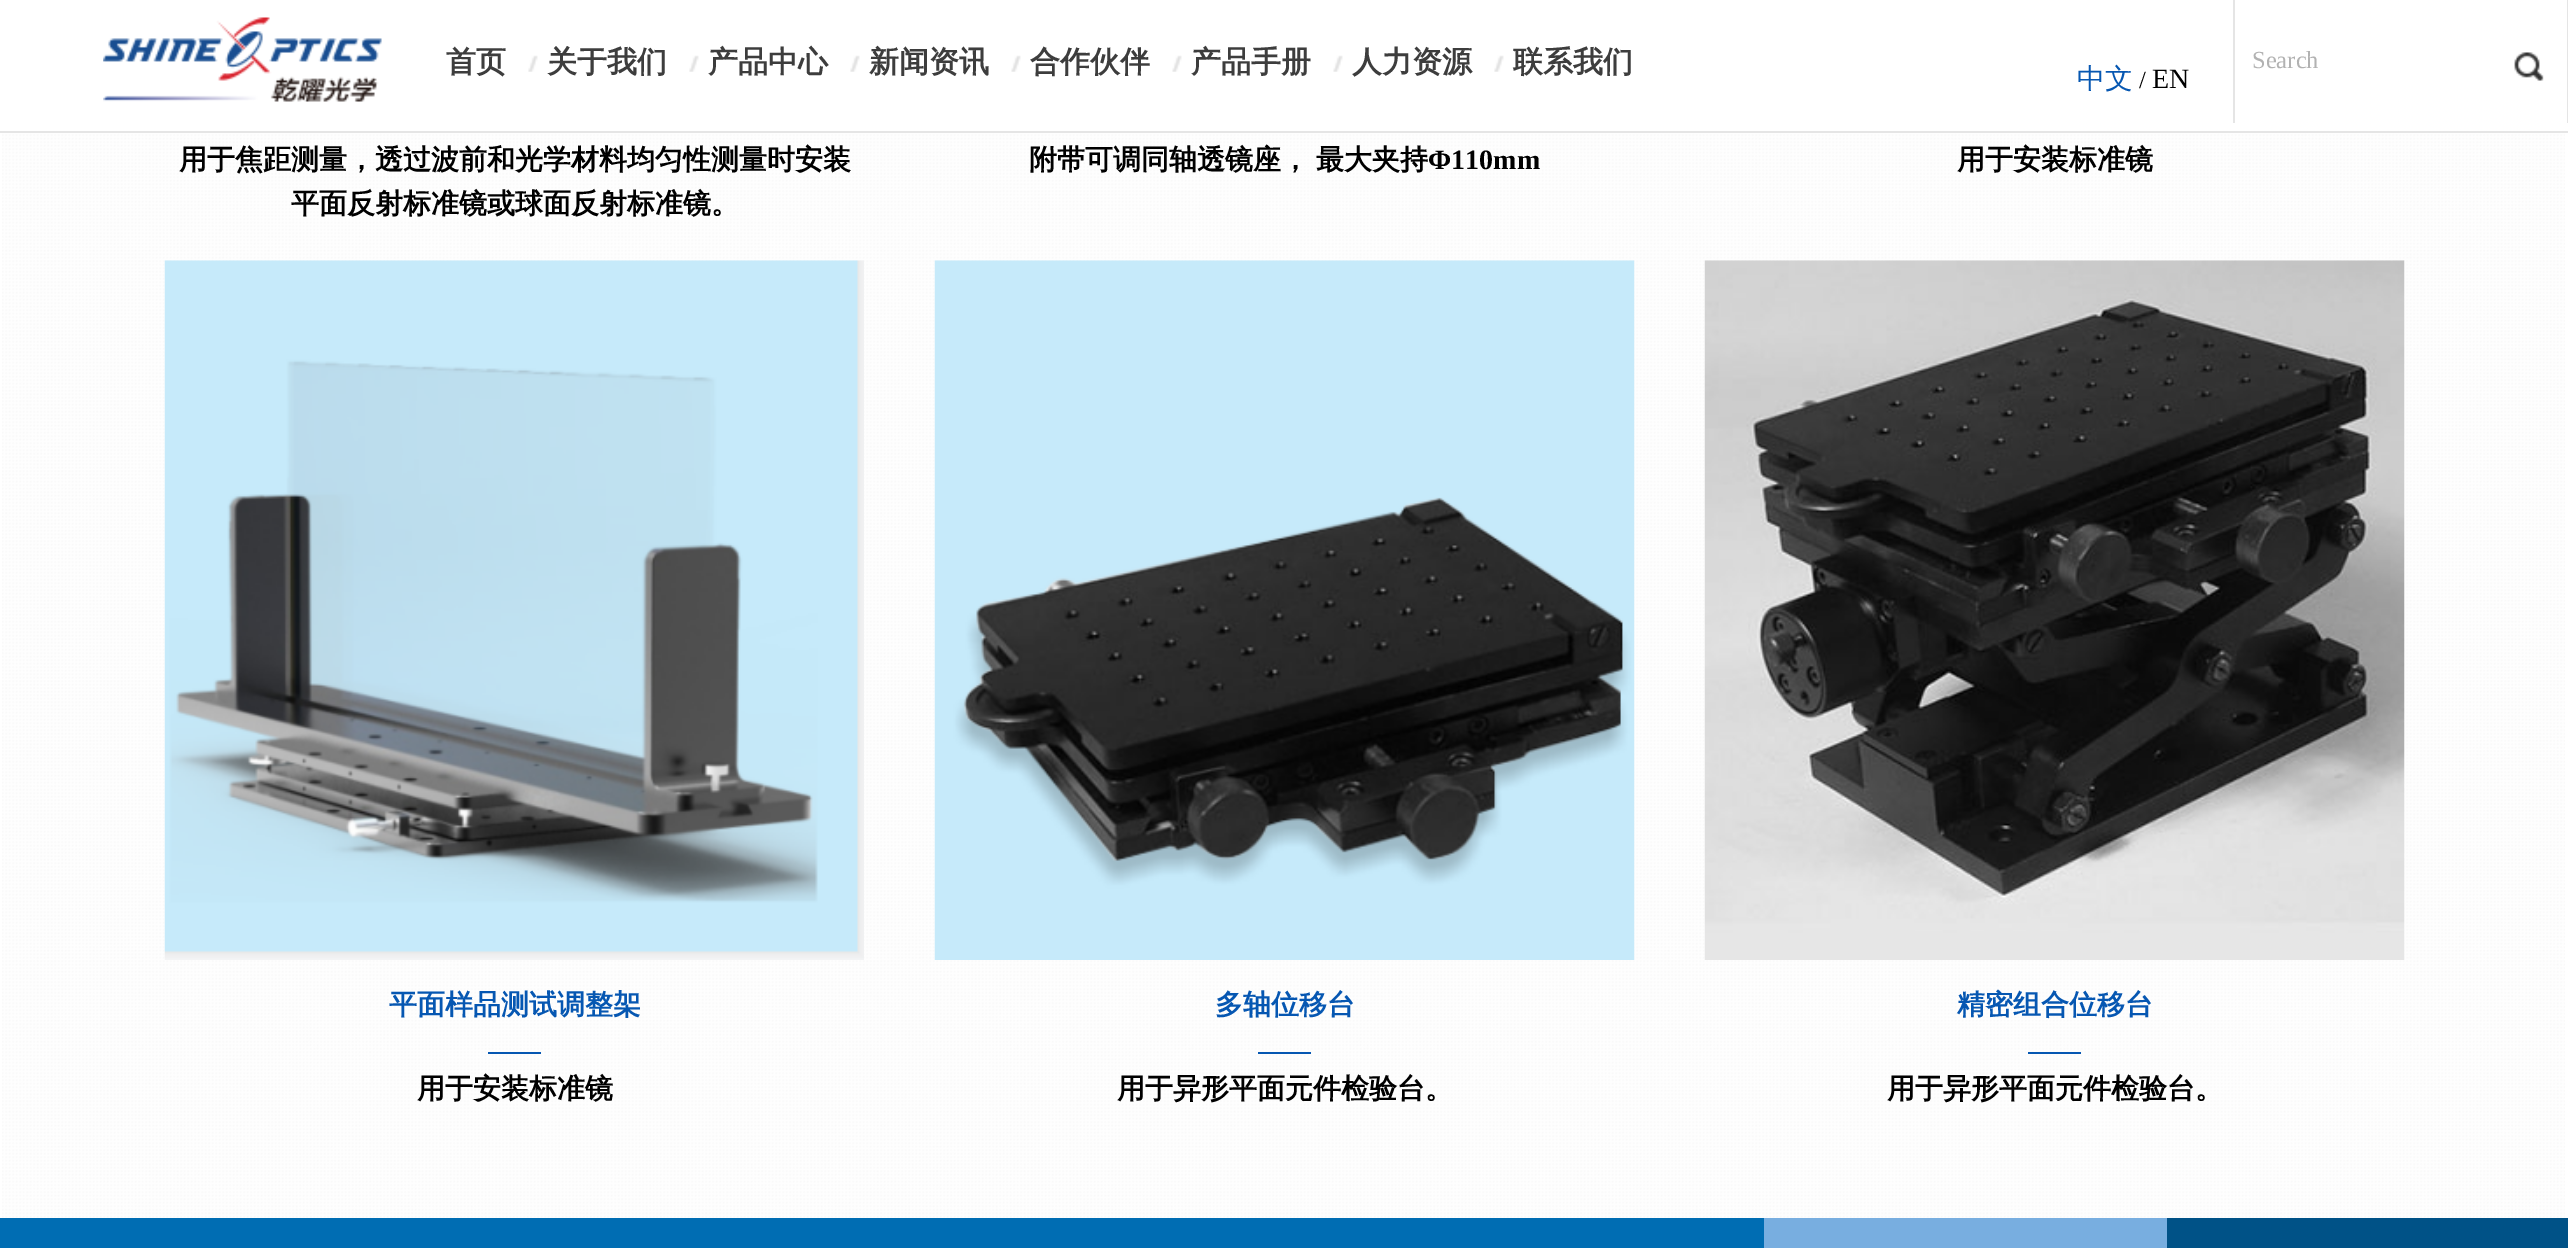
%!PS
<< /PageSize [2568 1248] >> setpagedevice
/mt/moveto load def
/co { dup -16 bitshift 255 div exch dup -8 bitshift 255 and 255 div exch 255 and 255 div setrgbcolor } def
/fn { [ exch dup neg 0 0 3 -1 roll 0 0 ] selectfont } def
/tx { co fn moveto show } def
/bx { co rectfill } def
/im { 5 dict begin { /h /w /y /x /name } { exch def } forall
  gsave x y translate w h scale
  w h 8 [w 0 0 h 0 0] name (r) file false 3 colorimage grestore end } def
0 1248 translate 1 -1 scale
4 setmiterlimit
0 0 2568 1248 16#FFFFFF bx
(media/1.raw) 2 133 2563 1085 im
0 131 2568 2 16#E5E5E5 bx
(media/2.raw) 103 17 279 85 im
(media/3.raw) 528 55 10 17 im
(media/3.raw) 689 55 10 17 im
(media/3.raw) 850 55 10 17 im
(media/4.raw) 1011 55 10 17 im
(media/4.raw) 1172 55 10 17 im
(media/4.raw) 1333 55 10 17 im
(media/3.raw) 1494 55 10 17 im
2567 0 1 123 16#E5E5E5 bx
2233 0 2 123 16#E5E5E5 bx
(media/5.raw) 2514 52 30 29 im
(media/6.raw) 164 260 700 700 im
488 1052 53 2 16#0657B2 bx
(media/7.raw) 934 260 701 700 im
1258 1052 53 2 16#0657B2 bx
(media/8.raw) 1704 260 701 700 im
2028 1052 53 2 16#0657B2 bx
0 1218 1764 30 16#006DB3 bx
1764 1218 403 30 16#78AEE0 bx
2167 1218 401 30 16#005287 bx
(首页) 446 72 /WenQuanYiZenHei-Bold 30 16#3D3D3D tx
(关于我们) 547 72 /WenQuanYiZenHei-Bold 30 16#3D3D3D tx
(产品中心) 708 72 /WenQuanYiZenHei-Bold 30 16#3D3D3D tx
(新闻资讯) 869 72 /WenQuanYiZenHei-Bold 30 16#3D3D3D tx
(合作伙伴) 1030 72 /WenQuanYiZenHei-Bold 30 16#3D3D3D tx
(产品手册) 1191 72 /WenQuanYiZenHei-Bold 30 16#3D3D3D tx
(人力资源) 1352 72 /WenQuanYiZenHei-Bold 30 16#3D3D3D tx
(联系我们) 1513 72 /WenQuanYiZenHei-Bold 30 16#3D3D3D tx
(Search) 2252 68 /LiberationSerif-Regular 24.5 16#B2B2B2 tx
(中文) 2077 88 /WenQuanYiZenHei-Medium 28 16#0657B2 tx
(/) 2139 88 /LiberationSerif-Regular 24.5 16#000000 tx
(EN) 2152 88 /LiberationSerif-Regular 28 16#000000 tx
(用于焦距测量，透过波前和光学材料均匀性测量时安装) 179 169 /WenQuanYiZenHei-Bold 28 16#000000 tx
(平面反射标准镜或球面反射标准镜。) 291 213 /WenQuanYiZenHei-Bold 28 16#000000 tx
1029 169 mt -1 0 32 (附带可调同轴透镜座， 最大夹持) widthshow
(Φ110mm) 1428 169 /LiberationSerif-Bold 28 16#000000 tx
(用于安装标准镜) 1957 169 /WenQuanYiZenHei-Bold 28 16#000000 tx
(平面样品测试调整架) 389 1014 /WenQuanYiZenHei-Bold 28 16#0657B2 tx
(用于安装标准镜) 417 1098 /WenQuanYiZenHei-Bold 28 16#000000 tx
(多轴位移台) 1215 1014 /WenQuanYiZenHei-Bold 28 16#0657B2 tx
(用于异形平面元件检验台。) 1117 1098 /WenQuanYiZenHei-Bold 28 16#000000 tx
(精密组合位移台) 1957 1014 /WenQuanYiZenHei-Bold 28 16#0657B2 tx
(用于异形平面元件检验台。) 1887 1098 /WenQuanYiZenHei-Bold 28 16#000000 tx
showpage
